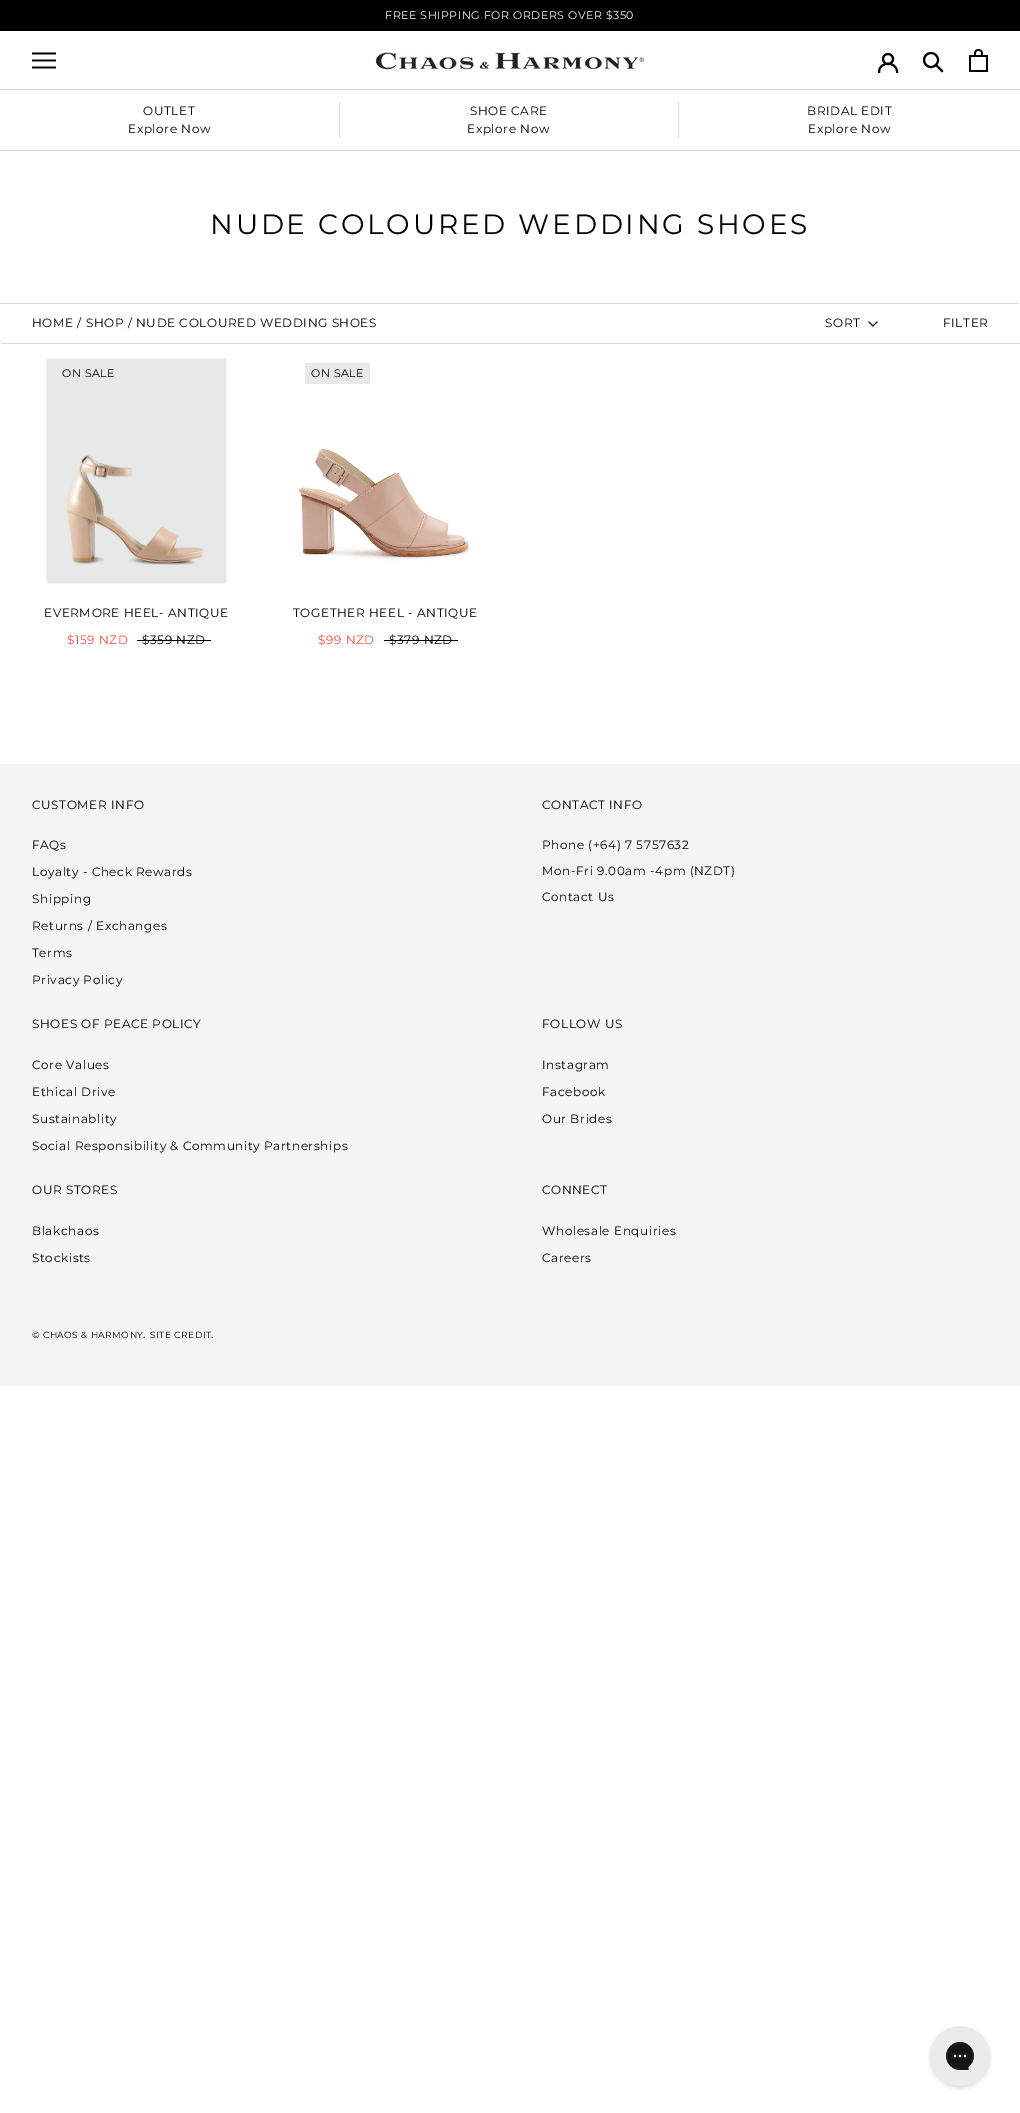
%!PS
<< /PageSize [1020 2113] >> setpagedevice
/mt/moveto load def
/li/lineto load def
/ct/curveto load def
/cp/closepath load def
/fl/fill load def
/st/stroke load def
/lw/setlinewidth load def
/co { dup -16 bitshift 255 div exch dup -8 bitshift 255 and 255 div exch 255 and 255 div setrgbcolor } def
/fn { [ exch dup neg 0 0 3 -1 roll 0 0 ] selectfont } def
/bx { co rectfill } def
/ci { newpath 0 360 arc closepath } def
/im { 5 dict begin { /h /w /y /x /name } { exch def } forall
  gsave x y translate w h scale
  w h 8 [w 0 0 h 0 0] name (r) file false 3 colorimage grestore end } def
0 2113 translate 1 -1 scale
4 setmiterlimit
0 0 1020 2113 16#FFFFFF bx
0 0 1020 31 16#000000 bx
0 89 1020 1 16#D9D9D9 bx
(media/1.raw) 32 52 24 17 im
(media/2.raw) 375 52 270 18 im
16#000000 co
2 lw
2 setlinecap
879 72 mt 879 61 897 61 897 72 ct st
0 setlinecap
888 59 5 ci st
2 setlinecap
942 71 mt 936.5 65.5 li st
0 setlinecap
931 60 7 ci st
(media/3.raw) 969 49 19 23 im
0 150 1020 1 16#D9D9D9 bx
339 102 1 36 16#D9D9D9 bx
678 102 1 36 16#D9D9D9 bx
-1 303 mt -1 342 li 0 342 li 0 304 li 1019 304 li 1019 303 li cp fl
1 343 mt 1 344 li 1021 344 li 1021 305 li 1020 305 li 1020 343 li cp fl
16#000000 co
1 lw
2 setlinecap
877 322 mt 873 326 li 869 322 li st
(media/4.raw) 46 358 181 226 im
137 640 74 1 16#000000 bx
305 363 65 21 16#E8E8E8 bx
(media/5.raw) 299 448 172 113 im
384 640 74 1 16#000000 bx
0 764 1020 622 16#F4F4F4 bx
(media/6.raw) 928 2026 64 64 im
/Montserrat-Regular 11 fn
16#FFFFFF co
385 19 mt .55 0 (FREE SHIPPING FOR ORDERS OVER $350) ashow
/Montserrat-Regular 12 fn
16#000000 co
143 115 mt .6 0 (OUTLET) ashow
128 133 mt .6 0 (Explore Now) ashow
470 115 mt .6 0 (SHOE CARE) ashow
467 133 mt .6 0 (Explore Now) ashow
807 115 mt .6 0 (BRIDAL EDIT) ashow
808 133 mt .6 0 (Explore Now) ashow
/Montserrat-Regular 28 fn
210 234 mt 2.8 0 (NUDE COLOURED WEDDING SHOES) ashow
/Montserrat-Regular 12 fn
32 327 mt .6 0 (HOME / SHOP / NUDE COLOURED WEDDING SHOES) ashow
825 327 mt .6 0 (SORT) ashow
943 327 mt .6 0 (FILTER) ashow
/Montserrat-Regular 11 fn
62 377 mt .55 0 (ON SALE) ashow
/Montserrat-Regular 12 fn
44 617 mt .6 0 (EVERMORE HEEL- ANTIQUE) ashow
16#F94C43 co
67 644 mt .6 0 ($159 NZD) ashow
16#000000 co
142 644 mt .6 0 ($359 NZD) ashow
/Montserrat-Regular 11 fn
311 377 mt .55 0 (ON SALE) ashow
/Montserrat-Regular 12 fn
293 617 mt .6 0 (TOGETHER HEEL - ANTIQUE) ashow
16#F94C43 co
318 644 mt .6 0 ($99 NZD) ashow
16#000000 co
389 644 mt .6 0 ($379 NZD) ashow
32 809 mt .6 0 (CUSTOMER INFO) ashow
32 849 mt .6 0 (FAQs) ashow
32 876 mt .6 0 (Loyalty - Check Rewards) ashow
32 903 mt .6 0 (Shipping) ashow
32 930 mt .6 0 (Returns / Exchanges) ashow
32 957 mt .6 0 (Terms) ashow
32 984 mt .6 0 (Privacy Policy) ashow
542 809 mt .6 0 (CONTACT INFO) ashow
542 849 mt .6 0 (Phone \(+64\) 7 5757632) ashow
542 875 mt .6 0 (Mon-Fri 9.00am -4pm \(NZDT\)) ashow
542 901 mt .6 0 (Contact Us) ashow
32 1028 mt .6 0 (SHOES OF PEACE POLICY) ashow
32 1069 mt .6 0 (Core Values) ashow
32 1096 mt .6 0 (Ethical Drive) ashow
32 1123 mt .6 0 (Sustainablity) ashow
32 1150 mt .6 0 (Social Responsibility & Community Partnerships) ashow
542 1028 mt .6 0 (FOLLOW US) ashow
542 1069 mt .6 0 (Instagram) ashow
542 1096 mt .6 0 (Facebook) ashow
542 1123 mt .6 0 (Our Brides) ashow
32 1194 mt .6 0 (OUR STORES) ashow
32 1235 mt .6 0 (Blakchaos) ashow
32 1262 mt .6 0 (Stockists) ashow
542 1194 mt .6 0 (CONNECT) ashow
542 1235 mt .6 0 (Wholesale Enquiries) ashow
542 1262 mt .6 0 (Careers) ashow
/Montserrat-Regular 9 fn
32 1338 mt .5 0 (© CHAOS & HARMONY) ashow
/Montserrat-Regular 12 fn
143 1338 mt .6 0 (.) ashow
/Montserrat-Regular 9 fn
150 1338 mt .5 0 (SITE CREDIT) ashow
/Montserrat-Regular 12 fn
211 1338 mt .6 0 (.) ashow
showpage
